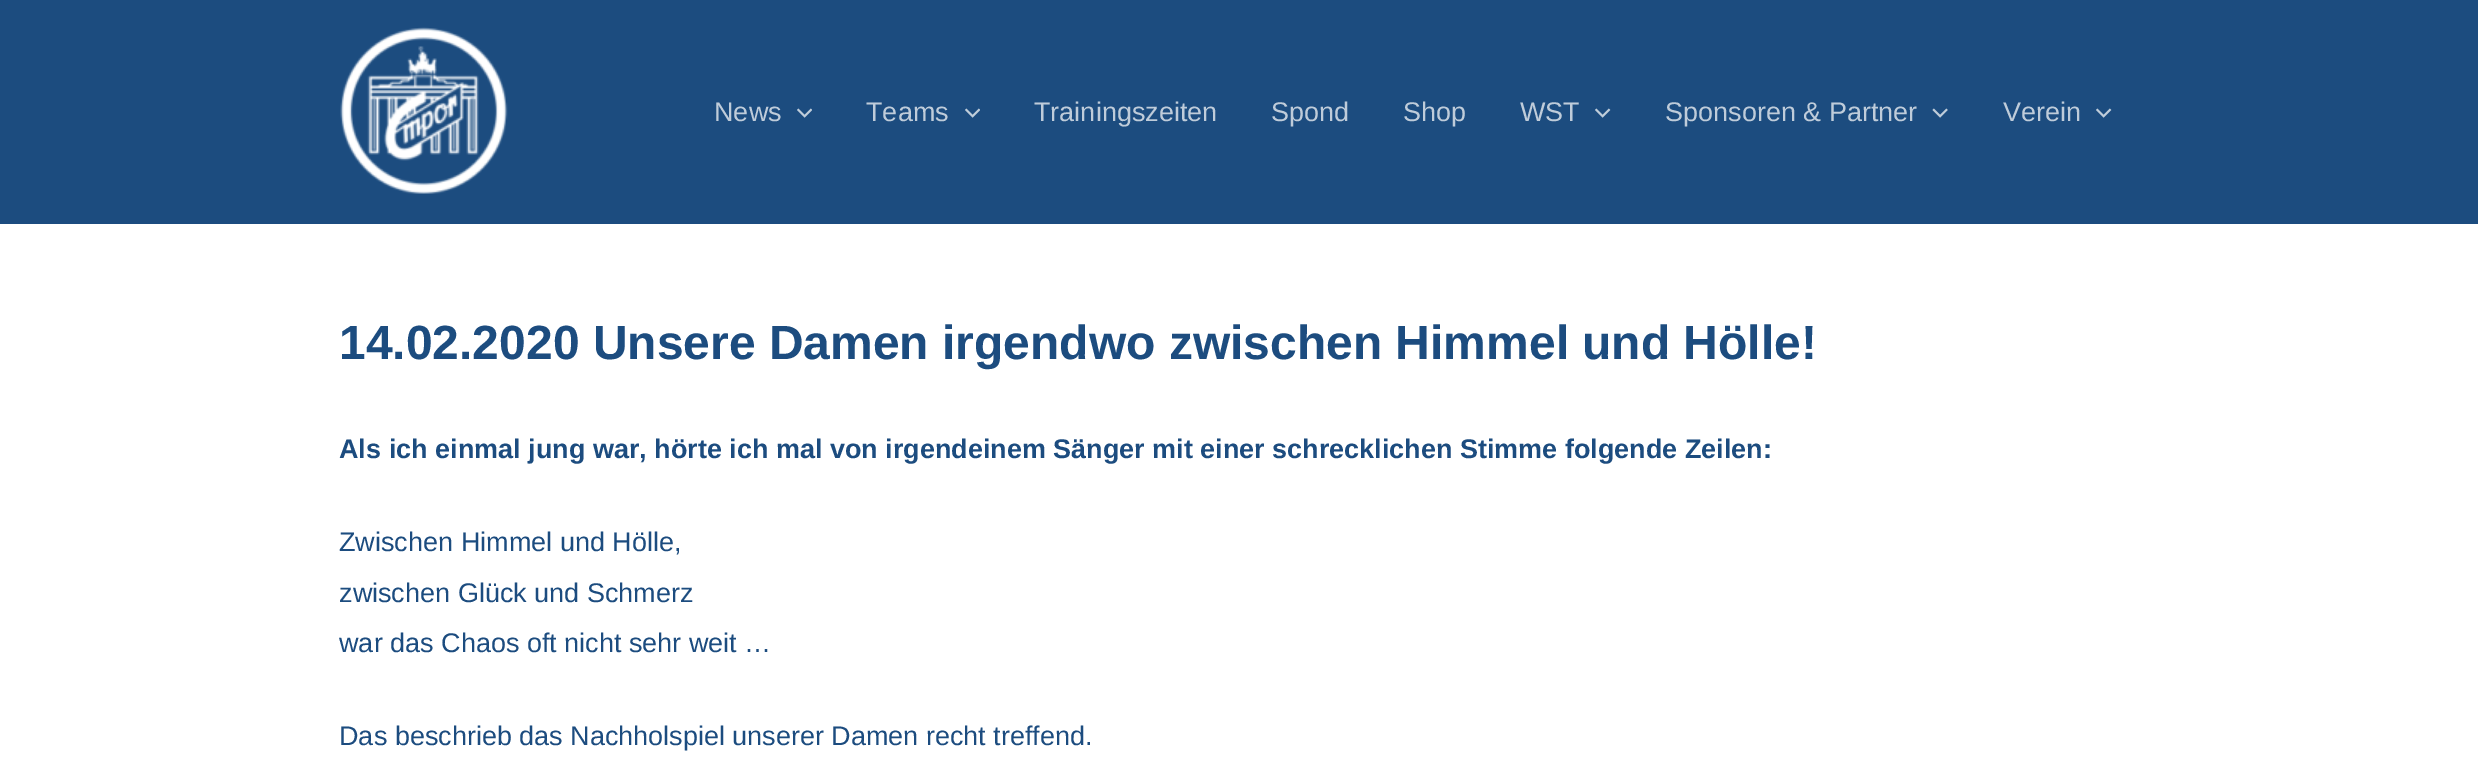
%!PS
<< /PageSize [2478 778] >> setpagedevice
/co { dup -16 bitshift 255 div exch dup -8 bitshift 255 and 255 div exch 255 and 255 div setrgbcolor } def
/fn { [ exch dup neg 0 0 3 -1 roll 0 0 ] selectfont } def
/tx { co fn moveto show } def
/bx { co rectfill } def
/im { 5 dict begin { /h /w /y /x /name } { exch def } forall
  gsave x y translate w h scale
  w h 8 [w 0 0 h 0 0] name (r) file false 3 colorimage grestore end } def
0 778 translate 1 -1 scale
4 setmiterlimit
0 0 2478 778 16#FFFFFF bx
0 0 2478 224 16#1C4C7F bx
(media/1.raw) 340 27 168 167 im
(media/2.raw) 797 108 15 10 im
(media/2.raw) 965 108 15 10 im
(media/3.raw) 1595 108 16 10 im
(media/4.raw) 1932 108 16 10 im
(media/3.raw) 2096 108 16 10 im
(News) 714 121 /LiberationSans-Regular 27 16#BFCCDA tx
(Teams) 866 121 /LiberationSans-Regular 27 16#BFCCDA tx
(Trainingszeiten) 1034 121 /LiberationSans-Regular 27 16#BFCCDA tx
(Spond) 1271 121 /LiberationSans-Regular 27 16#BFCCDA tx
(Shop) 1403 121 /LiberationSans-Regular 27 16#BFCCDA tx
(WST) 1520 121 /LiberationSans-Regular 27 16#BFCCDA tx
(Sponsoren & Partner) 1665 121 /LiberationSans-Regular 27 16#BFCCDA tx
(Verein) 2003 121 /LiberationSans-Regular 27 16#BFCCDA tx
(14.02.2020 Unsere Damen irgendwo zwischen Himmel und Hölle!) 339 359 /LiberationSans-Bold 48 16#1C4C7F tx
(Als ich einmal jung war, hörte ich mal von irgendeinem Sänger mit einer schrecklichen Stimme folgende Zeilen:) 339 458 /LiberationSans-Bold 27 16#1C4C7F tx
(Zwischen Himmel und Hölle,) 339 551 /LiberationSans-Regular 27 16#1C4C7F tx
(zwischen Glück und Schmerz) 339 602 /LiberationSans-Regular 27 16#1C4C7F tx
(war das Chaos oft nicht sehr weit …) 339 652 /LiberationSans-Regular 27 16#1C4C7F tx
(Das beschrieb das Nachholspiel unserer Damen recht treffend.) 339 745 /LiberationSans-Regular 27 16#1C4C7F tx
showpage
